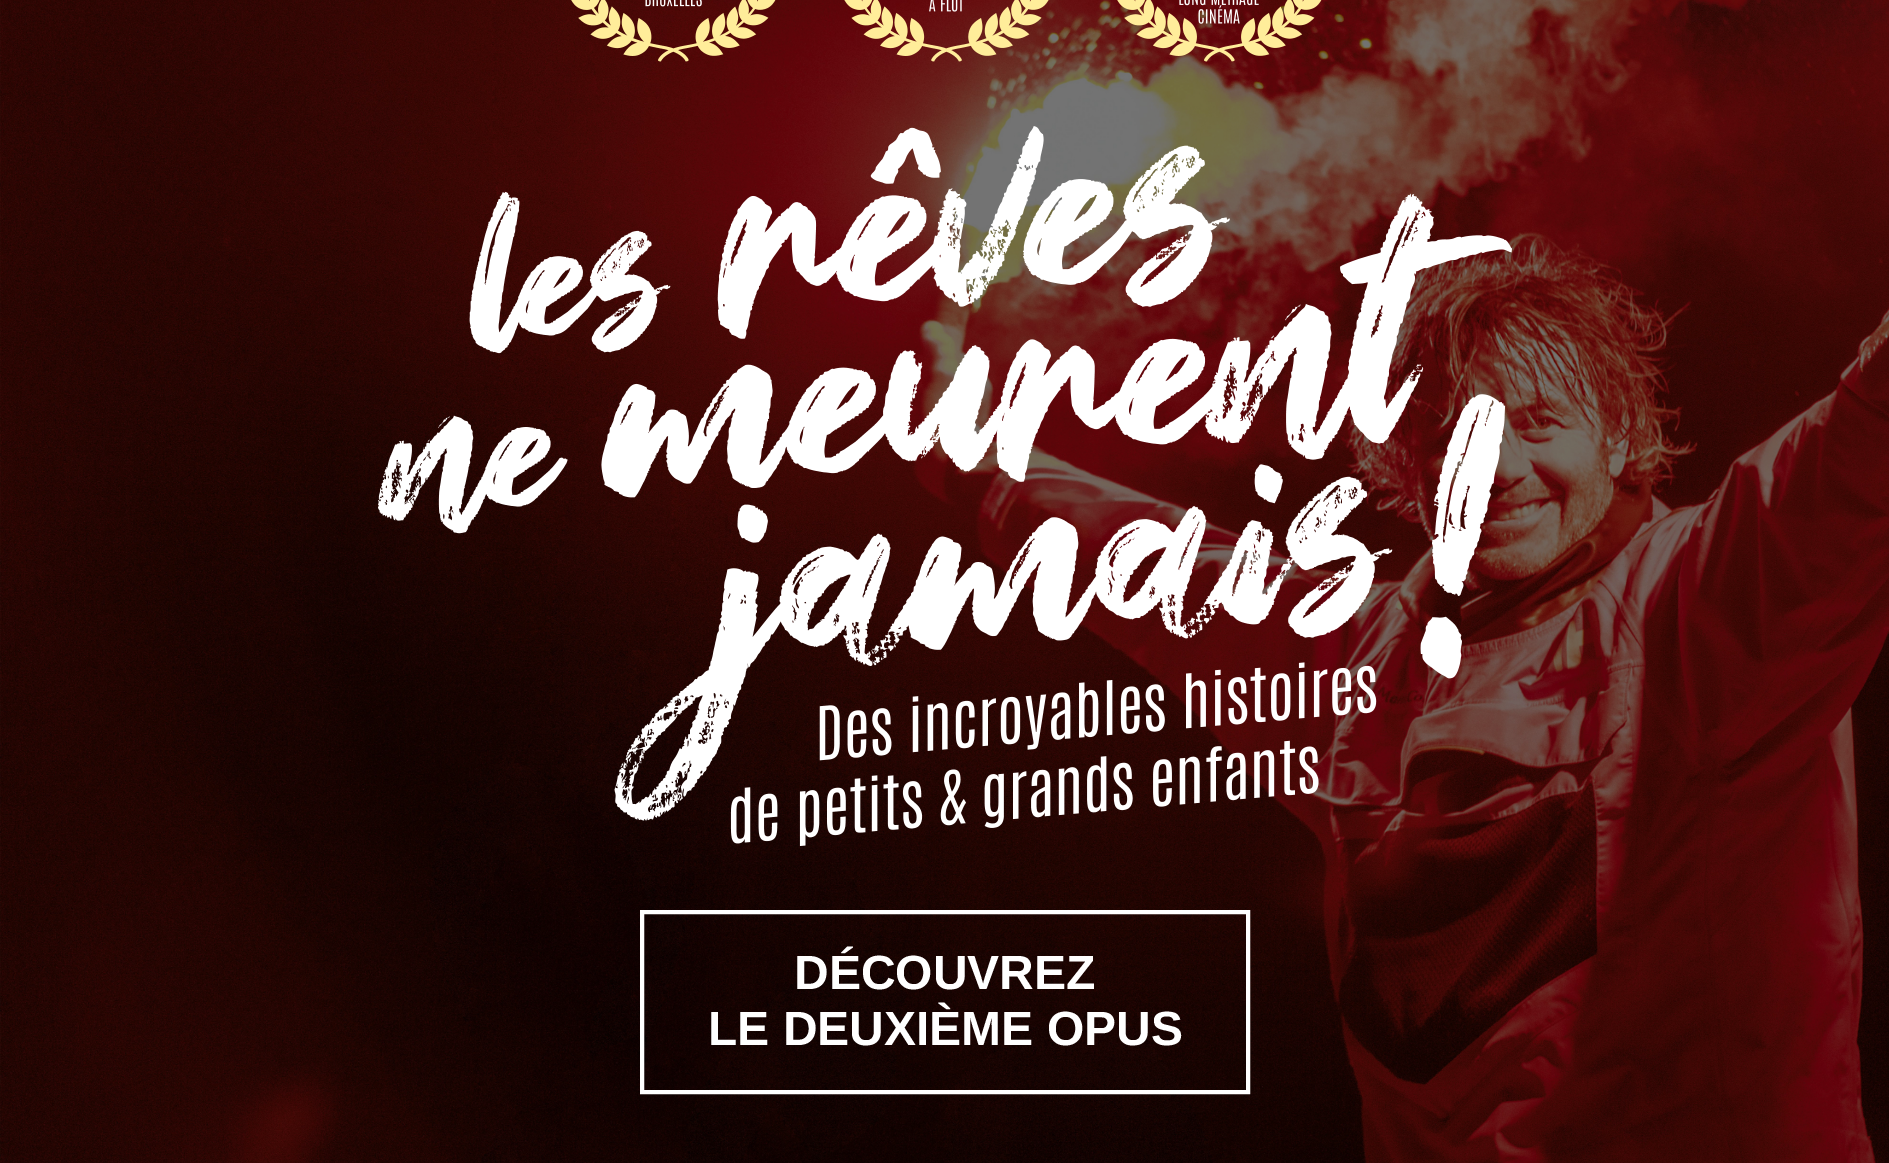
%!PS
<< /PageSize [1889 1163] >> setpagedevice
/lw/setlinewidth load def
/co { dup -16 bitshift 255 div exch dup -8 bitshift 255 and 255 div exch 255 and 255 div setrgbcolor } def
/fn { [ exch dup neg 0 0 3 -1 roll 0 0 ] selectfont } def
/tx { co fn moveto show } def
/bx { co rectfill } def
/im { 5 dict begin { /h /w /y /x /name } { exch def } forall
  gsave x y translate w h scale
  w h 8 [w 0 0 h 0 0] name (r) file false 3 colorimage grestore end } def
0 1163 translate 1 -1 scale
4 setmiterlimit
0 0 1889 1163 16#FFFFFF bx
(media/1.raw) 0 0 1889 1163 im
(media/2.raw) 571 0 751 62 im
(media/3.raw) 378 126 1134 720 im
4 lw
642 912 606 180 rectstroke
(DÉCOUVREZ) 794 989 /LiberationSans-Bold 48 16#FFFFFF tx
(LE DEUXIÈME OPUS) 708 1045 /LiberationSans-Bold 48 16#FFFFFF tx
showpage
